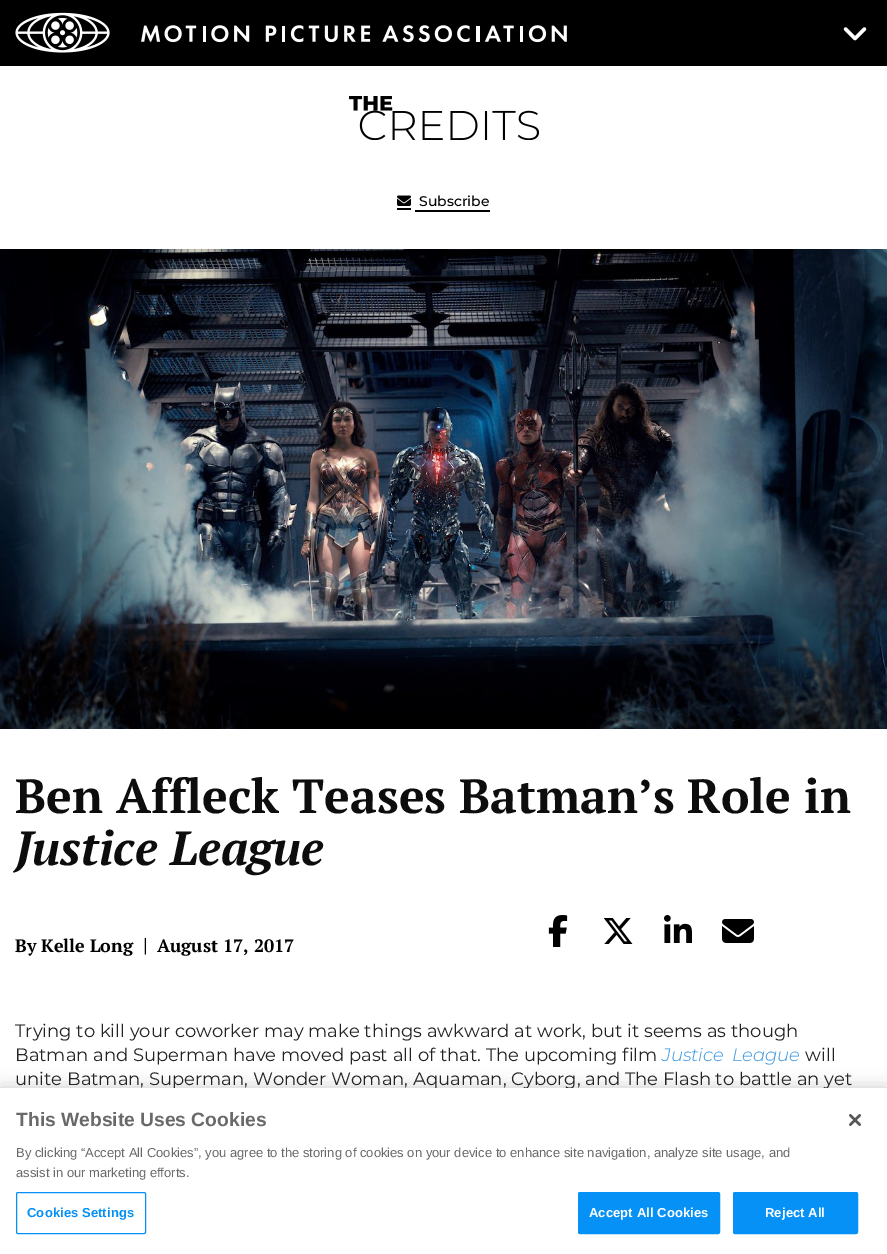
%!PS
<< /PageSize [887 1254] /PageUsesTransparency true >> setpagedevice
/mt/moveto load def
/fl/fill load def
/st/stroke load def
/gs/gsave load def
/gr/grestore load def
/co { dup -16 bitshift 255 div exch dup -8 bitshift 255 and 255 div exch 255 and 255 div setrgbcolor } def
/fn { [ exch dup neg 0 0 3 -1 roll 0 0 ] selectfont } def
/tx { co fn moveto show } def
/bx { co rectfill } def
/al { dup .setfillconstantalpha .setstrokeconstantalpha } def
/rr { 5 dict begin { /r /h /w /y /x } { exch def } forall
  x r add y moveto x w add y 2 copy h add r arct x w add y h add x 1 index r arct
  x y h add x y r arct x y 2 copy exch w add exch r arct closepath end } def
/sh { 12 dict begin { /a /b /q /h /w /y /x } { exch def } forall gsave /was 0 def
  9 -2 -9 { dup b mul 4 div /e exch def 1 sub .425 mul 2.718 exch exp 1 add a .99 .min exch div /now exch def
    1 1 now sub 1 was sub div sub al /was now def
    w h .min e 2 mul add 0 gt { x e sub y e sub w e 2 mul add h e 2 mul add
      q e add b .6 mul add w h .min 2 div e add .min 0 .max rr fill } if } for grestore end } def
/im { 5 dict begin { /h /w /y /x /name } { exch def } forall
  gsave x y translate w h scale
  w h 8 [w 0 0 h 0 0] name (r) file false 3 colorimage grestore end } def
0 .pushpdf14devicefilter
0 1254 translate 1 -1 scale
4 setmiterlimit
0 0 887 1254 16#FFFFFF bx
0 0 887 66 16#000000 bx
(media/1.raw) 15 12 552 41 im
(media/2.raw) 843 27 24 14 im
(media/3.raw) 349 96 190 44 im
397 208 14 2 16#000000 bx
415 210 75 2 16#000000 bx
(media/4.raw) 397 195 14 11 im
(media/5.raw) 0 249 887 480 im
(media/6.raw) 548 915 20 32 im
(media/7.raw) 603 918 30 26 im
(media/8.raw) 664 915 28 28 im
(media/9.raw) 722 919 32 24 im
0 1088 887 166 0 9 .2 sh
(Subscribe) 419 206 /Montserrat-Medium 14 16#000000 tx
(Ben Affleck Teases Batman’s Role in) 15 813 /PTSerif-Bold 48 16#0D0D0E tx
(Justice League) 15 865 /PTSerif-BoldItalic 48 16#0D0D0E tx
(By Kelle Long) 15 952 /PTSerif-Bold 18 16#000000 tx
(|) 143 952 /PTSerif-Bold 20 16#000000 tx
(August 17, 2017) 157 952 /PTSerif-Bold 18 16#000000 tx
(Trying to kill your coworker may make things awkward at work, but it seems as though) 15 1037 /Montserrat-Regular 18 16#232323 tx
(Batman and Superman have moved past all of that. The upcoming film) 15 1061 /Montserrat-Regular 18 16#232323 tx
/Montserrat-LightItalic 18 fn
16#3794DE co
662 1061 mt 3 0 32 (Justice League) widthshow
(will) 805 1061 /Montserrat-Regular 18 16#232323 tx
(unite Batman, Superman, Wonder Woman, Aquaman, Cyborg, and The Flash to battle an yet) 15 1085 /Montserrat-Regular 18 16#232323 tx
0 1088 887 166 16#FFFFFF bx
(This Website Uses Cookies) 16 1126 /LiberationSans-Bold 19.25 16#696969 tx
(By clicking “Accept All Cookies”, you agree to the storing of cookies on your device to enhance site navigation, analyze site usage, and) 16 1157 /LiberationSans-Regular 13 16#696969 tx
(assist in our marketing efforts.) 16 1177 /LiberationSans-Regular 13 16#696969 tx
16#0591F5 co
16.5 1192.5 129 41 1.5 rr st
/LiberationSans-Bold 13 fn
27 1217 mt .1 0 (Cookies Settings) ashow
578.5 1192.5 141 41 1.5 rr gs fl gr
st
16#FFFFFF co
589 1217 mt .1 0 (Accept All Cookies) ashow
16#0591F5 co
733.5 1192.5 124 41 1.5 rr gs fl gr
st
16#FFFFFF co
765 1217 mt .1 0 (Reject All) ashow
(media/10.raw) 849 1114 12 12 im
.poppdf14devicefilter showpage
